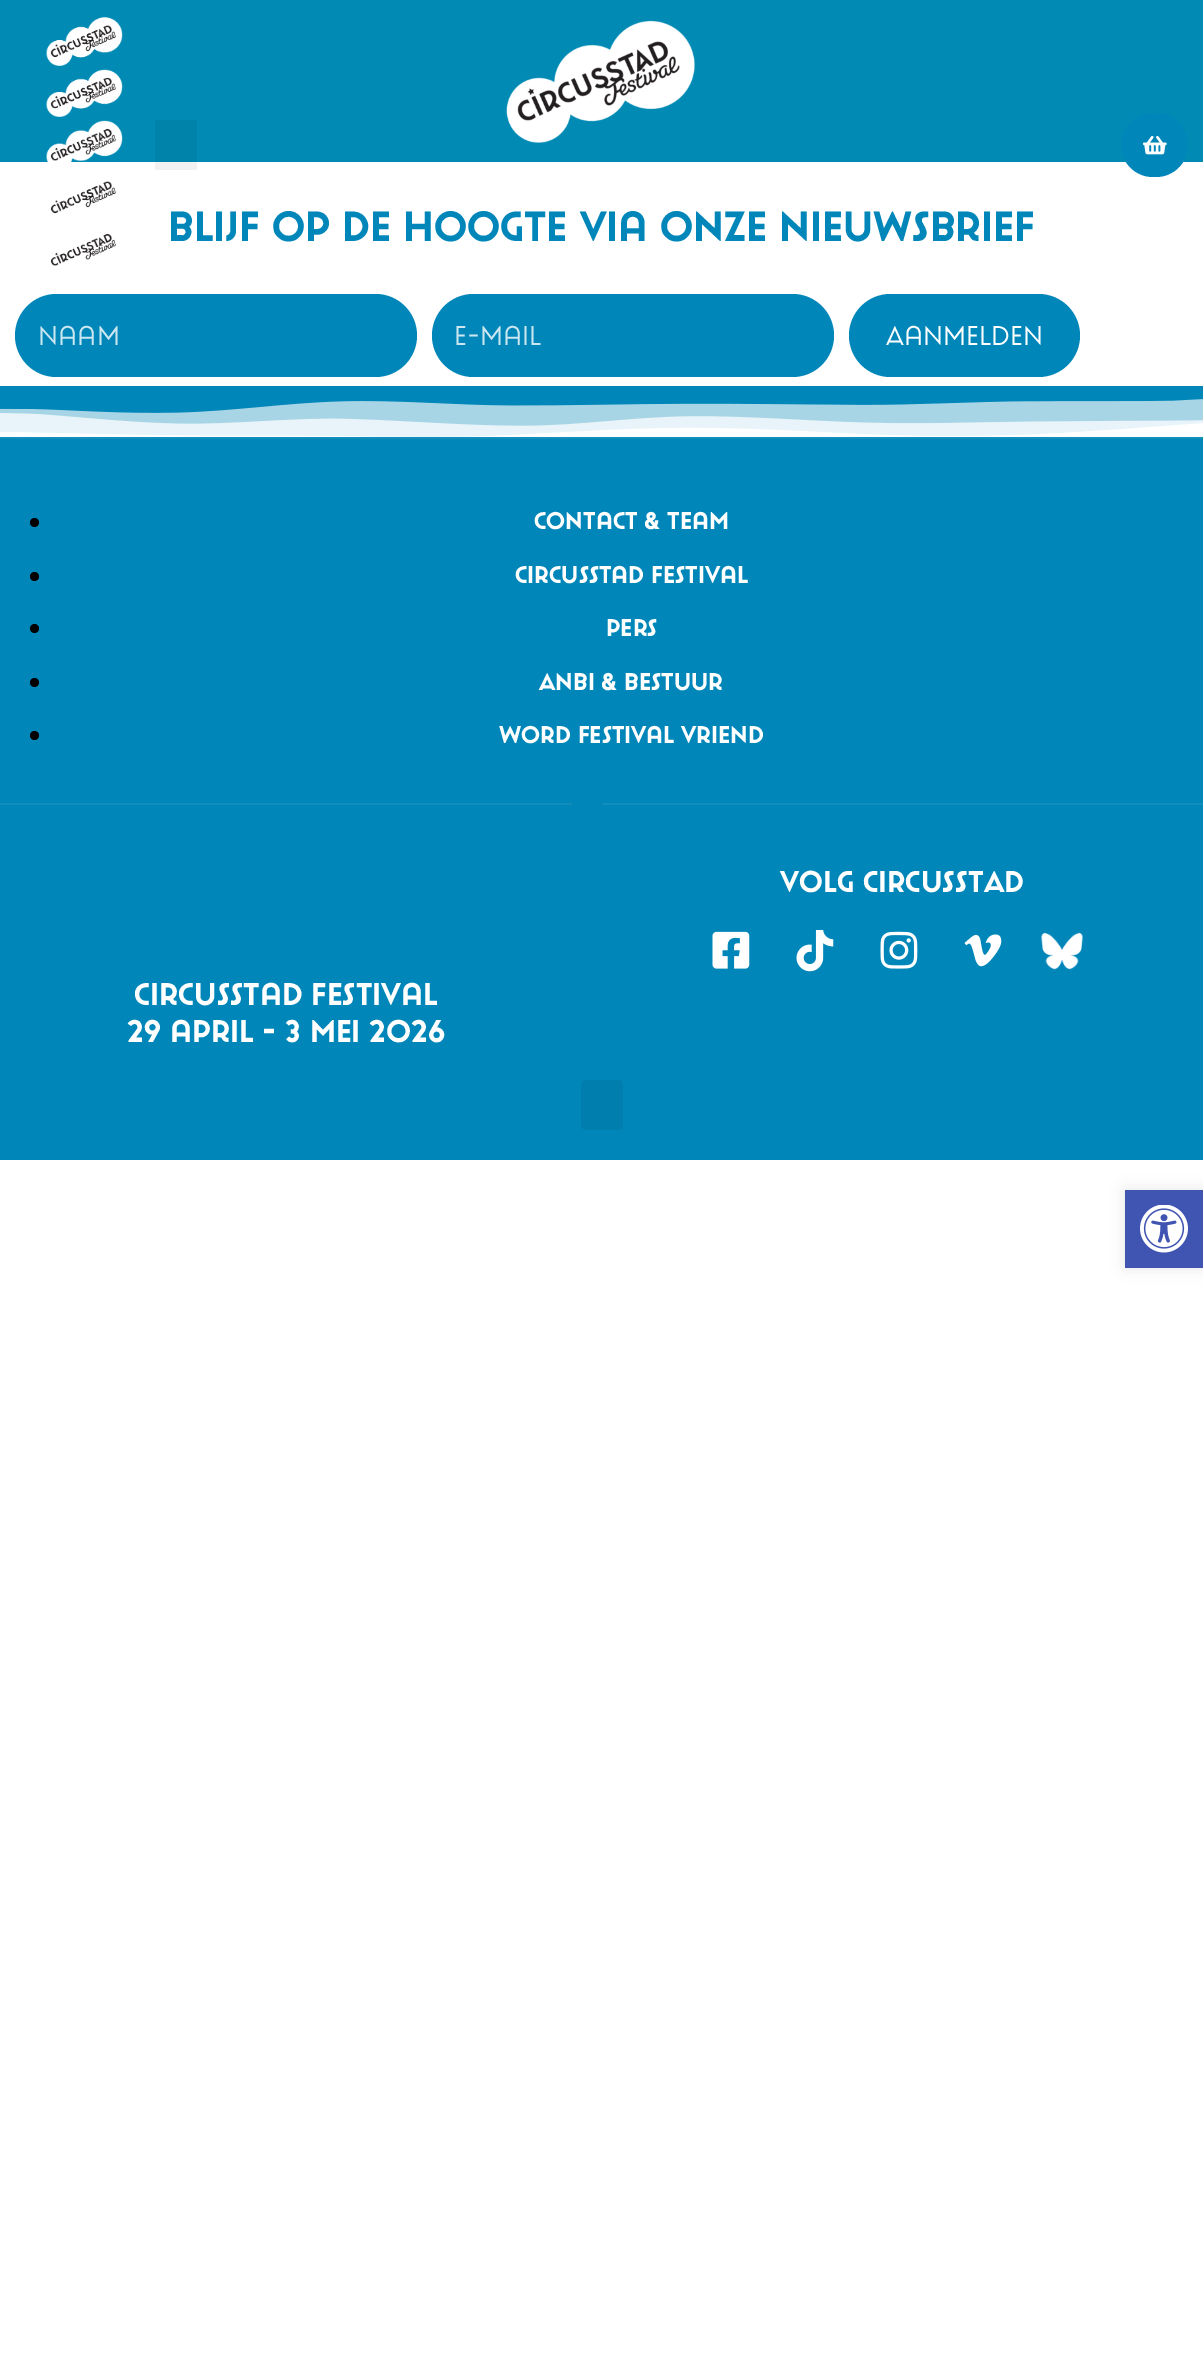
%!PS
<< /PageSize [1203 2378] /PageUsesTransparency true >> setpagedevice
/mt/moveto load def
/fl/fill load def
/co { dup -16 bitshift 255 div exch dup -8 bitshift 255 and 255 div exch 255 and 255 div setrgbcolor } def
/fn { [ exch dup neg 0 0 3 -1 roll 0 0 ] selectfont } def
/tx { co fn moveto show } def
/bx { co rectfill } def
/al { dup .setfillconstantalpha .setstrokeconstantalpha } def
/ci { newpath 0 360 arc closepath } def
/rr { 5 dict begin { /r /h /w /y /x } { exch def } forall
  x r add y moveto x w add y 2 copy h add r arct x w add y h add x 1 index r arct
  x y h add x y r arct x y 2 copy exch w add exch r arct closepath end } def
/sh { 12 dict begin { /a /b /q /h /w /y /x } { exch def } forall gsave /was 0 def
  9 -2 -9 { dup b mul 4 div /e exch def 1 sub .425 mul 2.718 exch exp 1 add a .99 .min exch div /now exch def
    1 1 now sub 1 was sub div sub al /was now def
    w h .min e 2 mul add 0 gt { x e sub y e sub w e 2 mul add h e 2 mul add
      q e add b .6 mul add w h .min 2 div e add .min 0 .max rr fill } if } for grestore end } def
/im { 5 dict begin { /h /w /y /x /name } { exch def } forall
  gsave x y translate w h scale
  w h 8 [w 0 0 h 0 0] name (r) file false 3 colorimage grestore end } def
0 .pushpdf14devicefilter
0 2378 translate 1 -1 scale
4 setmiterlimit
0 0 1203 2378 16#FFFFFF bx
0 0 1203 162 16#008AB4 bx
(media/1.raw) 506 20 189 123 im
(media/2.raw) 46 17 77 49 im
(media/3.raw) 46 69 77 48 im
(media/4.raw) 46 120 77 42 im
(media/5.raw) 50 181 67 33 im
(media/6.raw) 50 233 67 33 im
0.05 al
155 120 42 50 16#000000 bx
1 al
16#0086B8 co
1121 113 67 64 32 rr fl
(media/7.raw) 1143 135 24 20 im
15 294 402 83 41.5 rr fl
432 294 402 83 41.5 rr fl
849 294 231 83 41.5 rr fl
(media/8.raw) 0 386 1203 51 im
0 439 1203 721 16#0086B8 bx
0 437 1203 2 16#128EBD bx
16#000000 co
34.5 522.5 4.5 ci fl
34.5 576.5 4.5 ci fl
34.5 628.5 4.5 ci fl
34.5 682.5 4.5 ci fl
34.5 735.5 4.5 ci fl
602 803 601 2 16#128EBD bx
(media/9.raw) 712 931 38 38 im
(media/10.raw) 796 930 38 42 im
(media/11.raw) 880 931 38 38 im
(media/12.raw) 964 934 38 33 im
(media/13.raw) 1041 932 42 38 im
0 803 572 2 16#128EBD bx
16#007FAF co
581 1080 42 50 5 rr fl
16#000000 co
1125 1190 78 78 0 7.5 .1 sh
1125 1190 78 78 16#4054B2 bx
(media/14.raw) 1140 1205 48 48 im
(Blijf op de hoogte via onze nieuwsbrief) 168 241 /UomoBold-Bold 42 16#0086B8 tx
(Naam) 38 345 /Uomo-Regular 27 16#CCE7F1 tx
(E-mail) 454 345 /Uomo-Regular 27 16#CCE7F1 tx
(Aanmelden) 886 345 /Uomo-Regular 27 16#FFFFFF tx
(Contact & Team) 534 529 /UomoBold-Bold 24 16#FFFFFF tx
(Circusstad Festival) 515 583 /UomoBold-Bold 24 16#FFFFFF tx
(Pers) 606 636 /UomoBold-Bold 24 16#FFFFFF tx
(ANBI & Bestuur) 539 690 /UomoBold-Bold 24 16#FFFFFF tx
(Word festival vriend) 499 743 /UomoBold-Bold 24 16#FFFFFF tx
/UomoBold-Bold 30 fn
780 892 mt .1 0 (VOLG CIRCUSSTAD) ashow
(Circusstad Festival) 134 1005 /UomoBold-Bold 31.25 16#FFFFFF tx
(29 april - 3 mei 2026) 127 1042 /UomoBold-Bold 31.25 16#FFFFFF tx
.poppdf14devicefilter showpage
